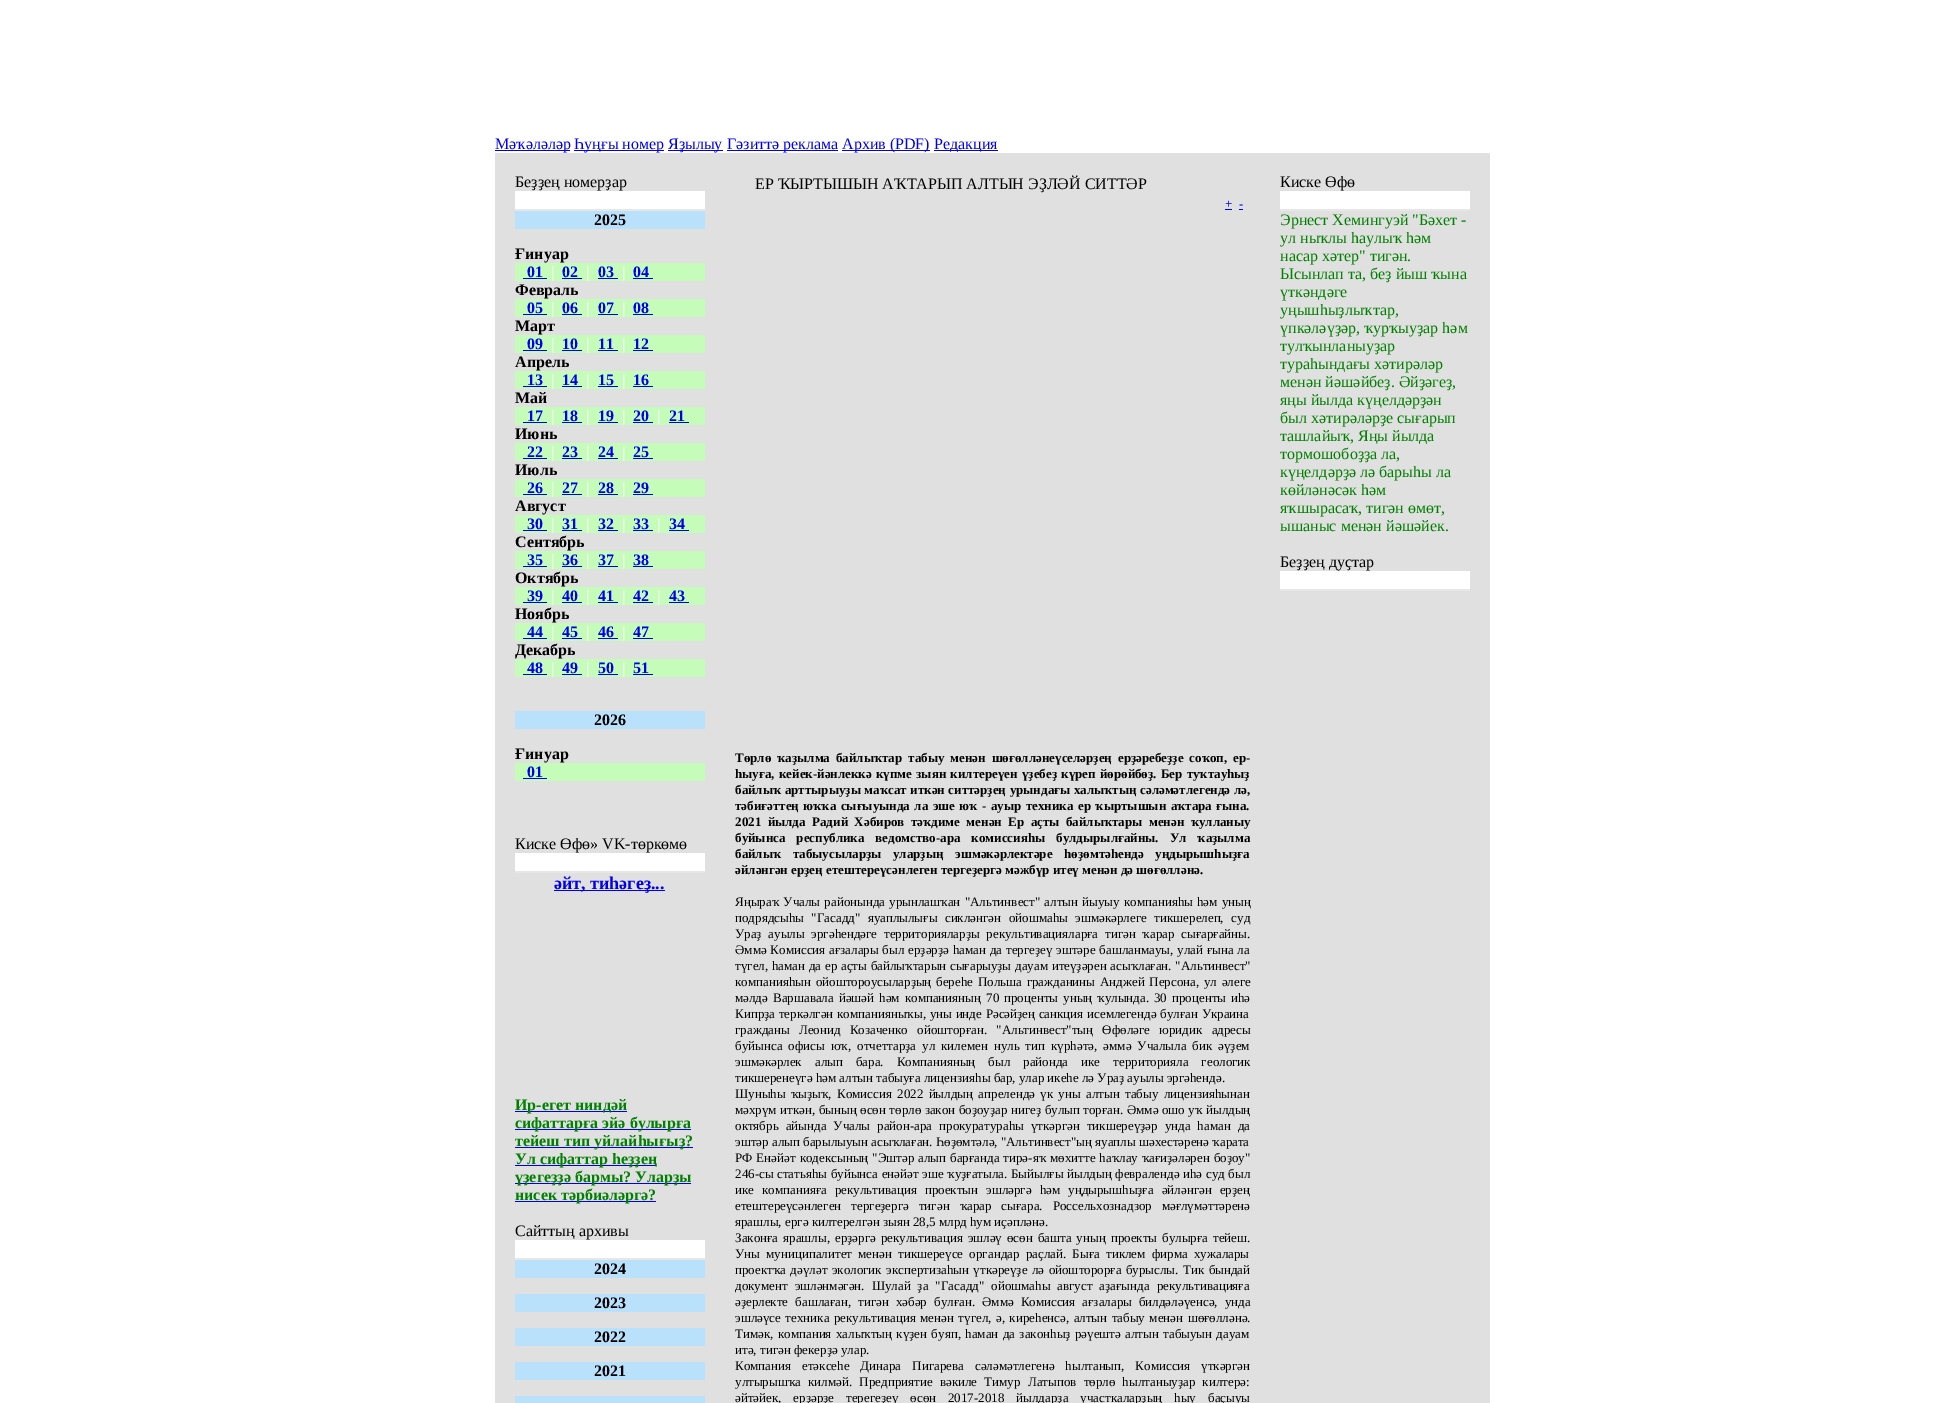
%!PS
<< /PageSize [1949 1403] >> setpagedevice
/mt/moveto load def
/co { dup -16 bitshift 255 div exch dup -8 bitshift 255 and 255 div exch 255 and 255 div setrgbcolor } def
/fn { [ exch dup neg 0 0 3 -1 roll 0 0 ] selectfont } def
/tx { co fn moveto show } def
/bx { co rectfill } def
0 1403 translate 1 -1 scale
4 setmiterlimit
0 0 1949 1403 16#FFFFFF bx
495 150 75 1 16#0000EE bx
574 150 90 1 16#0000EE bx
668 150 55 1 16#0000EE bx
727 150 111 1 16#0000EE bx
842 150 88 1 16#0000EE bx
934 150 64 1 16#0000EE bx
495 153 995 1250 16#E0E0E0 bx
515 191 190 18 16#FFFFFF bx
515 209 190 2 16#E7E7E7 bx
515 211 190 18 16#BAE1FC bx
515 263 190 18 16#C6FCBA bx
523 278 24 1 16#0000EE bx
562 278 20 1 16#0000EE bx
598 278 20 1 16#0000EE bx
633 278 20 1 16#0000EE bx
515 299 190 18 16#C6FCBA bx
523 314 24 1 16#0000EE bx
562 314 20 1 16#0000EE bx
598 314 20 1 16#0000EE bx
633 314 20 1 16#0000EE bx
515 335 190 18 16#C6FCBA bx
523 350 24 1 16#0000EE bx
562 350 20 1 16#0000EE bx
598 350 20 1 16#0000EE bx
633 350 20 1 16#0000EE bx
515 371 190 18 16#C6FCBA bx
523 386 24 1 16#0000EE bx
562 386 20 1 16#0000EE bx
598 386 20 1 16#0000EE bx
633 386 20 1 16#0000EE bx
515 407 190 18 16#C6FCBA bx
523 422 24 1 16#0000EE bx
562 422 20 1 16#0000EE bx
598 422 20 1 16#0000EE bx
633 422 20 1 16#0000EE bx
669 422 20 1 16#0000EE bx
515 443 190 18 16#C6FCBA bx
523 458 24 1 16#0000EE bx
562 458 20 1 16#0000EE bx
598 458 20 1 16#0000EE bx
633 458 20 1 16#0000EE bx
515 479 190 18 16#C6FCBA bx
523 494 24 1 16#0000EE bx
562 494 20 1 16#0000EE bx
598 494 20 1 16#0000EE bx
633 494 20 1 16#0000EE bx
515 515 190 18 16#C6FCBA bx
523 530 24 1 16#0000EE bx
562 530 20 1 16#0000EE bx
598 530 20 1 16#0000EE bx
633 530 20 1 16#0000EE bx
669 530 20 1 16#0000EE bx
515 551 190 18 16#C6FCBA bx
523 566 24 1 16#0000EE bx
562 566 20 1 16#0000EE bx
598 566 20 1 16#0000EE bx
633 566 20 1 16#0000EE bx
515 587 190 18 16#C6FCBA bx
523 602 24 1 16#0000EE bx
562 602 20 1 16#0000EE bx
598 602 20 1 16#0000EE bx
633 602 20 1 16#0000EE bx
669 602 20 1 16#0000EE bx
515 623 190 18 16#C6FCBA bx
523 638 24 1 16#0000EE bx
562 638 20 1 16#0000EE bx
598 638 20 1 16#0000EE bx
633 638 20 1 16#0000EE bx
515 659 190 18 16#C6FCBA bx
523 674 24 1 16#0000EE bx
562 674 20 1 16#0000EE bx
598 674 20 1 16#0000EE bx
633 674 20 1 16#0000EE bx
515 711 190 18 16#BAE1FC bx
515 763 190 18 16#C6FCBA bx
523 778 24 1 16#0000EE bx
515 853 190 18 16#FFFFFF bx
515 871 190 2 16#E7E7E7 bx
554 890 111 1 16#0000EE bx
515 1111 112 1 16#0000EE bx
515 1129 176 1 16#0000EE bx
515 1147 178 1 16#0000EE bx
515 1165 141 1 16#0000EE bx
515 1183 176 1 16#0000EE bx
515 1201 141 1 16#0000EE bx
515 1240 190 18 16#FFFFFF bx
515 1258 190 2 16#E7E7E7 bx
515 1260 190 18 16#BAE1FC bx
515 1294 190 18 16#BAE1FC bx
515 1328 190 18 16#BAE1FC bx
515 1362 190 18 16#BAE1FC bx
515 1396 190 7 16#BAE1FC bx
1225 209 7 1 16#0000EE bx
1239 209 4 1 16#0000EE bx
1280 191 190 18 16#FFFFFF bx
1280 209 190 2 16#E7E7E7 bx
1280 571 190 18 16#FFFFFF bx
1280 589 190 2 16#E7E7E7 bx
(Мәҡәләләр) 495 149 /LiberationSerif-Regular 16 16#0000EE tx
(Һуңғы номер) 574 149 /LiberationSerif-Regular 16 16#0000EE tx
(Яҙылыу) 668 149 /LiberationSerif-Regular 16 16#0000EE tx
(Гәзиттә реклама) 727 149 /LiberationSerif-Regular 16 16#0000EE tx
(Архив \(PDF\)) 842 149 /LiberationSerif-Regular 16 16#0000EE tx
(Редакция) 934 149 /LiberationSerif-Regular 16 16#0000EE tx
(Беҙҙең номерҙар) 515 187 /LiberationSerif-Regular 16 16#000000 tx
(2025) 594 225 /LiberationSerif-Bold 16 16#000000 tx
(Ғинуар) 515 259 /LiberationSerif-Bold 16 16#000000 tx
(01) 527 277 /LiberationSerif-Bold 16 16#0000EE tx
(|) 551 277 /LiberationSerif-Bold 16 16#FFFFFF tx
(02) 562 277 /LiberationSerif-Bold 16 16#0000EE tx
(|) 586 277 /LiberationSerif-Bold 16 16#FFFFFF tx
(03) 598 277 /LiberationSerif-Bold 16 16#0000EE tx
(|) 622 277 /LiberationSerif-Bold 16 16#FFFFFF tx
(04) 633 277 /LiberationSerif-Bold 16 16#0000EE tx
(Февраль) 515 295 /LiberationSerif-Bold 16 16#000000 tx
(05) 527 313 /LiberationSerif-Bold 16 16#0000EE tx
(|) 551 313 /LiberationSerif-Bold 16 16#FFFFFF tx
(06) 562 313 /LiberationSerif-Bold 16 16#0000EE tx
(|) 586 313 /LiberationSerif-Bold 16 16#FFFFFF tx
(07) 598 313 /LiberationSerif-Bold 16 16#0000EE tx
(|) 622 313 /LiberationSerif-Bold 16 16#FFFFFF tx
(08) 633 313 /LiberationSerif-Bold 16 16#0000EE tx
(Март) 515 331 /LiberationSerif-Bold 16 16#000000 tx
(09) 527 349 /LiberationSerif-Bold 16 16#0000EE tx
(|) 551 349 /LiberationSerif-Bold 16 16#FFFFFF tx
(10) 562 349 /LiberationSerif-Bold 16 16#0000EE tx
(|) 586 349 /LiberationSerif-Bold 16 16#FFFFFF tx
(11) 598 349 /LiberationSerif-Bold 16 16#0000EE tx
(|) 622 349 /LiberationSerif-Bold 16 16#FFFFFF tx
(12) 633 349 /LiberationSerif-Bold 16 16#0000EE tx
(Апрель) 515 367 /LiberationSerif-Bold 16 16#000000 tx
(13) 527 385 /LiberationSerif-Bold 16 16#0000EE tx
(|) 551 385 /LiberationSerif-Bold 16 16#FFFFFF tx
(14) 562 385 /LiberationSerif-Bold 16 16#0000EE tx
(|) 586 385 /LiberationSerif-Bold 16 16#FFFFFF tx
(15) 598 385 /LiberationSerif-Bold 16 16#0000EE tx
(|) 622 385 /LiberationSerif-Bold 16 16#FFFFFF tx
(16) 633 385 /LiberationSerif-Bold 16 16#0000EE tx
(Май) 515 403 /LiberationSerif-Bold 16 16#000000 tx
(17) 527 421 /LiberationSerif-Bold 16 16#0000EE tx
(|) 551 421 /LiberationSerif-Bold 16 16#FFFFFF tx
(18) 562 421 /LiberationSerif-Bold 16 16#0000EE tx
(|) 586 421 /LiberationSerif-Bold 16 16#FFFFFF tx
(19) 598 421 /LiberationSerif-Bold 16 16#0000EE tx
(|) 622 421 /LiberationSerif-Bold 16 16#FFFFFF tx
(20) 633 421 /LiberationSerif-Bold 16 16#0000EE tx
(|) 657 421 /LiberationSerif-Bold 16 16#FFFFFF tx
(21) 669 421 /LiberationSerif-Bold 16 16#0000EE tx
(Июнь) 515 439 /LiberationSerif-Bold 16 16#000000 tx
(22) 527 457 /LiberationSerif-Bold 16 16#0000EE tx
(|) 551 457 /LiberationSerif-Bold 16 16#FFFFFF tx
(23) 562 457 /LiberationSerif-Bold 16 16#0000EE tx
(|) 586 457 /LiberationSerif-Bold 16 16#FFFFFF tx
(24) 598 457 /LiberationSerif-Bold 16 16#0000EE tx
(|) 622 457 /LiberationSerif-Bold 16 16#FFFFFF tx
(25) 633 457 /LiberationSerif-Bold 16 16#0000EE tx
(Июль) 515 475 /LiberationSerif-Bold 16 16#000000 tx
(26) 527 493 /LiberationSerif-Bold 16 16#0000EE tx
(|) 551 493 /LiberationSerif-Bold 16 16#FFFFFF tx
(27) 562 493 /LiberationSerif-Bold 16 16#0000EE tx
(|) 586 493 /LiberationSerif-Bold 16 16#FFFFFF tx
(28) 598 493 /LiberationSerif-Bold 16 16#0000EE tx
(|) 622 493 /LiberationSerif-Bold 16 16#FFFFFF tx
(29) 633 493 /LiberationSerif-Bold 16 16#0000EE tx
(Август) 515 511 /LiberationSerif-Bold 16 16#000000 tx
(30) 527 529 /LiberationSerif-Bold 16 16#0000EE tx
(|) 551 529 /LiberationSerif-Bold 16 16#FFFFFF tx
(31) 562 529 /LiberationSerif-Bold 16 16#0000EE tx
(|) 586 529 /LiberationSerif-Bold 16 16#FFFFFF tx
(32) 598 529 /LiberationSerif-Bold 16 16#0000EE tx
(|) 622 529 /LiberationSerif-Bold 16 16#FFFFFF tx
(33) 633 529 /LiberationSerif-Bold 16 16#0000EE tx
(|) 657 529 /LiberationSerif-Bold 16 16#FFFFFF tx
(34) 669 529 /LiberationSerif-Bold 16 16#0000EE tx
(Сентябрь) 515 547 /LiberationSerif-Bold 16 16#000000 tx
(35) 527 565 /LiberationSerif-Bold 16 16#0000EE tx
(|) 551 565 /LiberationSerif-Bold 16 16#FFFFFF tx
(36) 562 565 /LiberationSerif-Bold 16 16#0000EE tx
(|) 586 565 /LiberationSerif-Bold 16 16#FFFFFF tx
(37) 598 565 /LiberationSerif-Bold 16 16#0000EE tx
(|) 622 565 /LiberationSerif-Bold 16 16#FFFFFF tx
(38) 633 565 /LiberationSerif-Bold 16 16#0000EE tx
(Октябрь) 515 583 /LiberationSerif-Bold 16 16#000000 tx
(39) 527 601 /LiberationSerif-Bold 16 16#0000EE tx
(|) 551 601 /LiberationSerif-Bold 16 16#FFFFFF tx
(40) 562 601 /LiberationSerif-Bold 16 16#0000EE tx
(|) 586 601 /LiberationSerif-Bold 16 16#FFFFFF tx
(41) 598 601 /LiberationSerif-Bold 16 16#0000EE tx
(|) 622 601 /LiberationSerif-Bold 16 16#FFFFFF tx
(42) 633 601 /LiberationSerif-Bold 16 16#0000EE tx
(|) 657 601 /LiberationSerif-Bold 16 16#FFFFFF tx
(43) 669 601 /LiberationSerif-Bold 16 16#0000EE tx
(Ноябрь) 515 619 /LiberationSerif-Bold 16 16#000000 tx
(44) 527 637 /LiberationSerif-Bold 16 16#0000EE tx
(|) 551 637 /LiberationSerif-Bold 16 16#FFFFFF tx
(45) 562 637 /LiberationSerif-Bold 16 16#0000EE tx
(|) 586 637 /LiberationSerif-Bold 16 16#FFFFFF tx
(46) 598 637 /LiberationSerif-Bold 16 16#0000EE tx
(|) 622 637 /LiberationSerif-Bold 16 16#FFFFFF tx
(47) 633 637 /LiberationSerif-Bold 16 16#0000EE tx
(Декабрь) 515 655 /LiberationSerif-Bold 16 16#000000 tx
(48) 527 673 /LiberationSerif-Bold 16 16#0000EE tx
(|) 551 673 /LiberationSerif-Bold 16 16#FFFFFF tx
(49) 562 673 /LiberationSerif-Bold 16 16#0000EE tx
(|) 586 673 /LiberationSerif-Bold 16 16#FFFFFF tx
(50) 598 673 /LiberationSerif-Bold 16 16#0000EE tx
(|) 622 673 /LiberationSerif-Bold 16 16#FFFFFF tx
(51) 633 673 /LiberationSerif-Bold 16 16#0000EE tx
(2026) 594 725 /LiberationSerif-Bold 16 16#000000 tx
(Ғинуар) 515 759 /LiberationSerif-Bold 16 16#000000 tx
(01) 527 777 /LiberationSerif-Bold 16 16#0000EE tx
(Киске Өфө» VK-төркөмө) 515 849 /LiberationSerif-Regular 16 16#000000 tx
(әйт, тиһәгеҙ...) 554 889 /LiberationSerif-Bold 18 16#0000EE tx
(Ир-егет ниндәй) 515 1110 /LiberationSerif-Bold 16 16#008000 tx
(сифаттарға эйә булырға) 515 1128 /LiberationSerif-Bold 16 16#008000 tx
(тейеш тип уйлайһығыҙ?) 515 1146 /LiberationSerif-Bold 16 16#008000 tx
(Ул сифаттар һеҙҙең) 515 1164 /LiberationSerif-Bold 16 16#008000 tx
(үҙегеҙҙә бармы? Уларҙы) 515 1182 /LiberationSerif-Bold 16 16#008000 tx
(нисек тәрбиәләргә?) 515 1200 /LiberationSerif-Bold 16 16#008000 tx
(Сайттың архивы) 515 1236 /LiberationSerif-Regular 16 16#000000 tx
(2024) 594 1274 /LiberationSerif-Bold 16 16#000000 tx
(2023) 594 1308 /LiberationSerif-Bold 16 16#000000 tx
(2022) 594 1342 /LiberationSerif-Bold 16 16#000000 tx
(2021) 594 1376 /LiberationSerif-Bold 16 16#000000 tx
(ЕР ҠЫРТЫШЫН АҠТАРЫП АЛТЫН ЭҘЛӘЙ СИТТӘР) 755 189 /LiberationSerif-Regular 16 16#000000 tx
(+) 1225 208 /LiberationSerif-Regular 13 16#0000EE tx
(-) 1239 208 /LiberationSerif-Regular 13 16#0000EE tx
/LiberationSerif-Bold 13 fn
16#000000 co
735 762 mt 2.75 0 32 (Төрлө ҡаҙылма байлыҡтар табыу менән шөғөлләнеүселәрҙең ерҙәребеҙҙе соҡоп, ер-) widthshow
735 778 mt 1 0 32 (һыуға, кейек-йәнлеккә күпме зыян килтереүен үҙебеҙ күреп йөрөйбөҙ. Бер туҡтауһыҙ) widthshow
735 794 mt .4 0 32 (байлыҡ арттырыуҙы маҡсат иткән ситтәрҙең урындағы халыҡтың сәләмәтлегендә лә,) widthshow
735 810 mt 1.25 0 32 (тәбиғәттең юҡҡа сығыуында ла эше юҡ - ауыр техника ер ҡыртышын аҡтара ғына.) widthshow
735 826 mt 3.25 0 32 (2021 йылда Радий Хәбиров тәҡдиме менән Ер аҫты байлыҡтары менән ҡулланыу) widthshow
735 842 mt 7.75 0 32 (буйынса республика ведомство-ара комиссияһы булдырылғайны. Ул ҡаҙылма) widthshow
735 858 mt 8.5 0 32 (байлыҡ табыусыларҙы уларҙың эшмәкәрлектәре һөҙөмтәһендә уңдырышһыҙға) widthshow
(әйләнгән ерҙең етештереүсәнлеген тергеҙергә мәжбүр итеү менән дә шөғөлләнә.) 735 874 /LiberationSerif-Bold 13 16#000000 tx
/LiberationSerif-Regular 13 fn
735 906 mt 1 0 32 (Яңыраҡ Учалы районында урынлашҡан "Альтинвест" алтын йыуыу компанияһы һәм уның) widthshow
735 922 mt 4.25 0 32 (подрядсыһы "Гасадд" яуаплылығы сикләнгән ойошмаһы эшмәкәрлеге тикшерелеп, суд) widthshow
735 938 mt 3.5 0 32 (Ураҙ ауылы эргәһендәге территорияларҙы рекультивацияларға тигән ҡарар сығарғайны.) widthshow
735 954 mt .6 0 32 (Әммә Комиссия ағзалары был ерҙәрҙә һаман да тергеҙеү эштәре башланмауы, улай ғына ла) widthshow
735 970 mt .5 0 32 (түгел, һаман да ер аҫты байлыҡтарын сығарыуҙы дауам итеүҙәрен асыҡлаған. "Альтинвест") widthshow
735 986 mt 1.5 0 32 (компанияһын ойоштороусыларҙың береһе Польша гражданины Анджей Персона, ул әлеге) widthshow
735 1002 mt 1.75 0 32 (мәлдә Варшавала йәшәй һәм компанияның 70 проценты уның ҡулында. 30 проценты иһә) widthshow
735 1018 mt .5 0 32 (Кипрҙа теркәлгән компанияныҡы, уны инде Рәсәйҙең санкция исемлегендә булған Украина) widthshow
735 1034 mt 6 0 32 (гражданы Леонид Козаченко ойошторған. "Альтинвест"тың Өфөләге юридик адресы) widthshow
735 1050 mt 2.75 0 32 (буйынса офисы юҡ, отчеттарҙа ул килемен нуль тип күрһәтә, әммә Учалыла бик әүҙем) widthshow
735 1066 mt 9.75 0 32 (эшмәкәрлек алып бара. Компанияның был районда ике территорияла геологик) widthshow
(тикшеренеүгә һәм алтын табыуға лицензияһы бар, улар икеһе лә Ураҙ ауылы эргәһендә.) 735 1082 /LiberationSerif-Regular 13 16#000000 tx
735 1098 mt 2.1 0 32 (Шуныһы ҡыҙыҡ, Комиссия 2022 йылдың апрелендә үк уны алтын табыу лицензияһынан) widthshow
735 1114 mt .25 0 32 (мәхрүм иткән, бының өсөн төрлө закон боҙоуҙар нигеҙ булып торған. Әммә ошо уҡ йылдың) widthshow
735 1130 mt 3.75 0 32 (октябрь айында Учалы район-ара прокуратураһы үткәргән тикшереүҙәр унда һаман да) widthshow
(эштәр алып барылыуын асыҡлаған. Һөҙөмтәлә, "Альтинвест"ың яуаплы шәхестәренә ҡарата) 735 1146 /LiberationSerif-Regular 13 16#000000 tx
735 1162 mt .75 0 32 (РФ Енәйәт кодексының "Эштәр алып барғанда тирә-яҡ мөхитте һаҡлау ҡағиҙәләрен боҙоу") widthshow
735 1178 mt .4 0 32 (246-сы статьяһы буйынса енәйәт эше ҡуҙғатыла. Быйылғы йылдың февралендә иһә суд был) widthshow
735 1194 mt 4.75 0 32 (ике компанияға рекультивация проектын эшләргә һәм уңдырышһыҙға әйләнгән ерҙең) widthshow
735 1210 mt 6.75 0 32 (етештереүсәнлеген тергеҙергә тигән ҡарар сығара. Россельхознадзор мәғлүмәттәренә) widthshow
(ярашлы, ергә килтерелгән зыян 28,5 млрд һум иҫәпләнә.) 735 1226 /LiberationSerif-Regular 13 16#000000 tx
735 1242 mt 1.75 0 32 (Законға ярашлы, ерҙәргә рекультивация эшләү өсөн башта уның проекты булырға тейеш.) widthshow
735 1258 mt 3 0 32 (Уны муниципалитет менән тикшереүсе органдар раҫлай. Быға тиклем фирма хужалары) widthshow
735 1274 mt 1.25 0 32 (проектҡа дәүләт экологик экспертизаһын үткәреүҙе лә ойошторорға бурыслы. Тик бындай) widthshow
735 1290 mt 3.75 0 32 (документ эшләнмәгән. Шулай ҙа "Гасадд" ойошмаһы август аҙағында рекультивацияға) widthshow
735 1306 mt 3.75 0 32 (әҙерлекте башлаған, тигән хәбәр булған. Әммә Комиссия ағзалары билдәләүенсә, унда) widthshow
735 1322 mt 1.25 0 32 (эшләүсе техника рекультивация менән түгел, ә, киреһенсә, алтын табыу менән шөғөлләнә.) widthshow
735 1338 mt 1.1 0 32 (Тимәк, компания халыҡтың күҙен буяп, һаман да законһыҙ рәүештә алтын табыуын дауам) widthshow
(итә, тигән фекерҙә улар.) 735 1354 /LiberationSerif-Regular 13 16#000000 tx
735 1370 mt 7.75 0 32 (Компания етәксеһе Динара Пигарева сәләмәтлегенә һылтанып, Комиссия үткәргән) widthshow
735 1386 mt 4 0 32 (ултырышҡа килмәй. Предприятие вәкиле Тимур Латыпов төрлө һылтаныуҙар килтерә:) widthshow
735 1402 mt 8.75 0 32 (әйтәйек, ерҙәрҙе терегеҙеү өсөн 2017-2018 йылдарҙа участкаларҙың һыу баҫыуы) widthshow
(Киске Өфө) 1280 187 /LiberationSerif-Regular 16 16#000000 tx
(Эрнест Хемингуэй "Бәхет -) 1280 225 /LiberationSerif-Regular 16 16#008000 tx
(ул ныҡлы һаулыҡ һәм) 1280 243 /LiberationSerif-Regular 16 16#008000 tx
(насар хәтер" тигән.) 1280 261 /LiberationSerif-Regular 16 16#008000 tx
(Ысынлап та, беҙ йыш ҡына) 1280 279 /LiberationSerif-Regular 16 16#008000 tx
(үткәндәге) 1280 297 /LiberationSerif-Regular 16 16#008000 tx
(уңышһыҙлыҡтар,) 1280 315 /LiberationSerif-Regular 16 16#008000 tx
(үпкәләүҙәр, ҡурҡыуҙар һәм) 1280 333 /LiberationSerif-Regular 16 16#008000 tx
(тулҡынланыуҙар) 1280 351 /LiberationSerif-Regular 16 16#008000 tx
(тураһындағы хәтирәләр) 1280 369 /LiberationSerif-Regular 16 16#008000 tx
(менән йәшәйбеҙ. Әйҙәгеҙ,) 1280 387 /LiberationSerif-Regular 16 16#008000 tx
(яңы йылда күңелдәрҙән) 1280 405 /LiberationSerif-Regular 16 16#008000 tx
(был хәтирәләрҙе сығарып) 1280 423 /LiberationSerif-Regular 16 16#008000 tx
(ташлайыҡ, Яңы йылда) 1280 441 /LiberationSerif-Regular 16 16#008000 tx
(тормошобоҙҙа ла,) 1280 459 /LiberationSerif-Regular 16 16#008000 tx
(күңелдәрҙә лә барыһы ла) 1280 477 /LiberationSerif-Regular 16 16#008000 tx
(көйләнәсәк һәм) 1280 495 /LiberationSerif-Regular 16 16#008000 tx
(яҡшырасаҡ, тигән өмөт,) 1280 513 /LiberationSerif-Regular 16 16#008000 tx
(ышаныс менән йәшәйек.) 1280 531 /LiberationSerif-Regular 16 16#008000 tx
(Беҙҙең дуҫтар) 1280 567 /LiberationSerif-Regular 16 16#000000 tx
showpage
